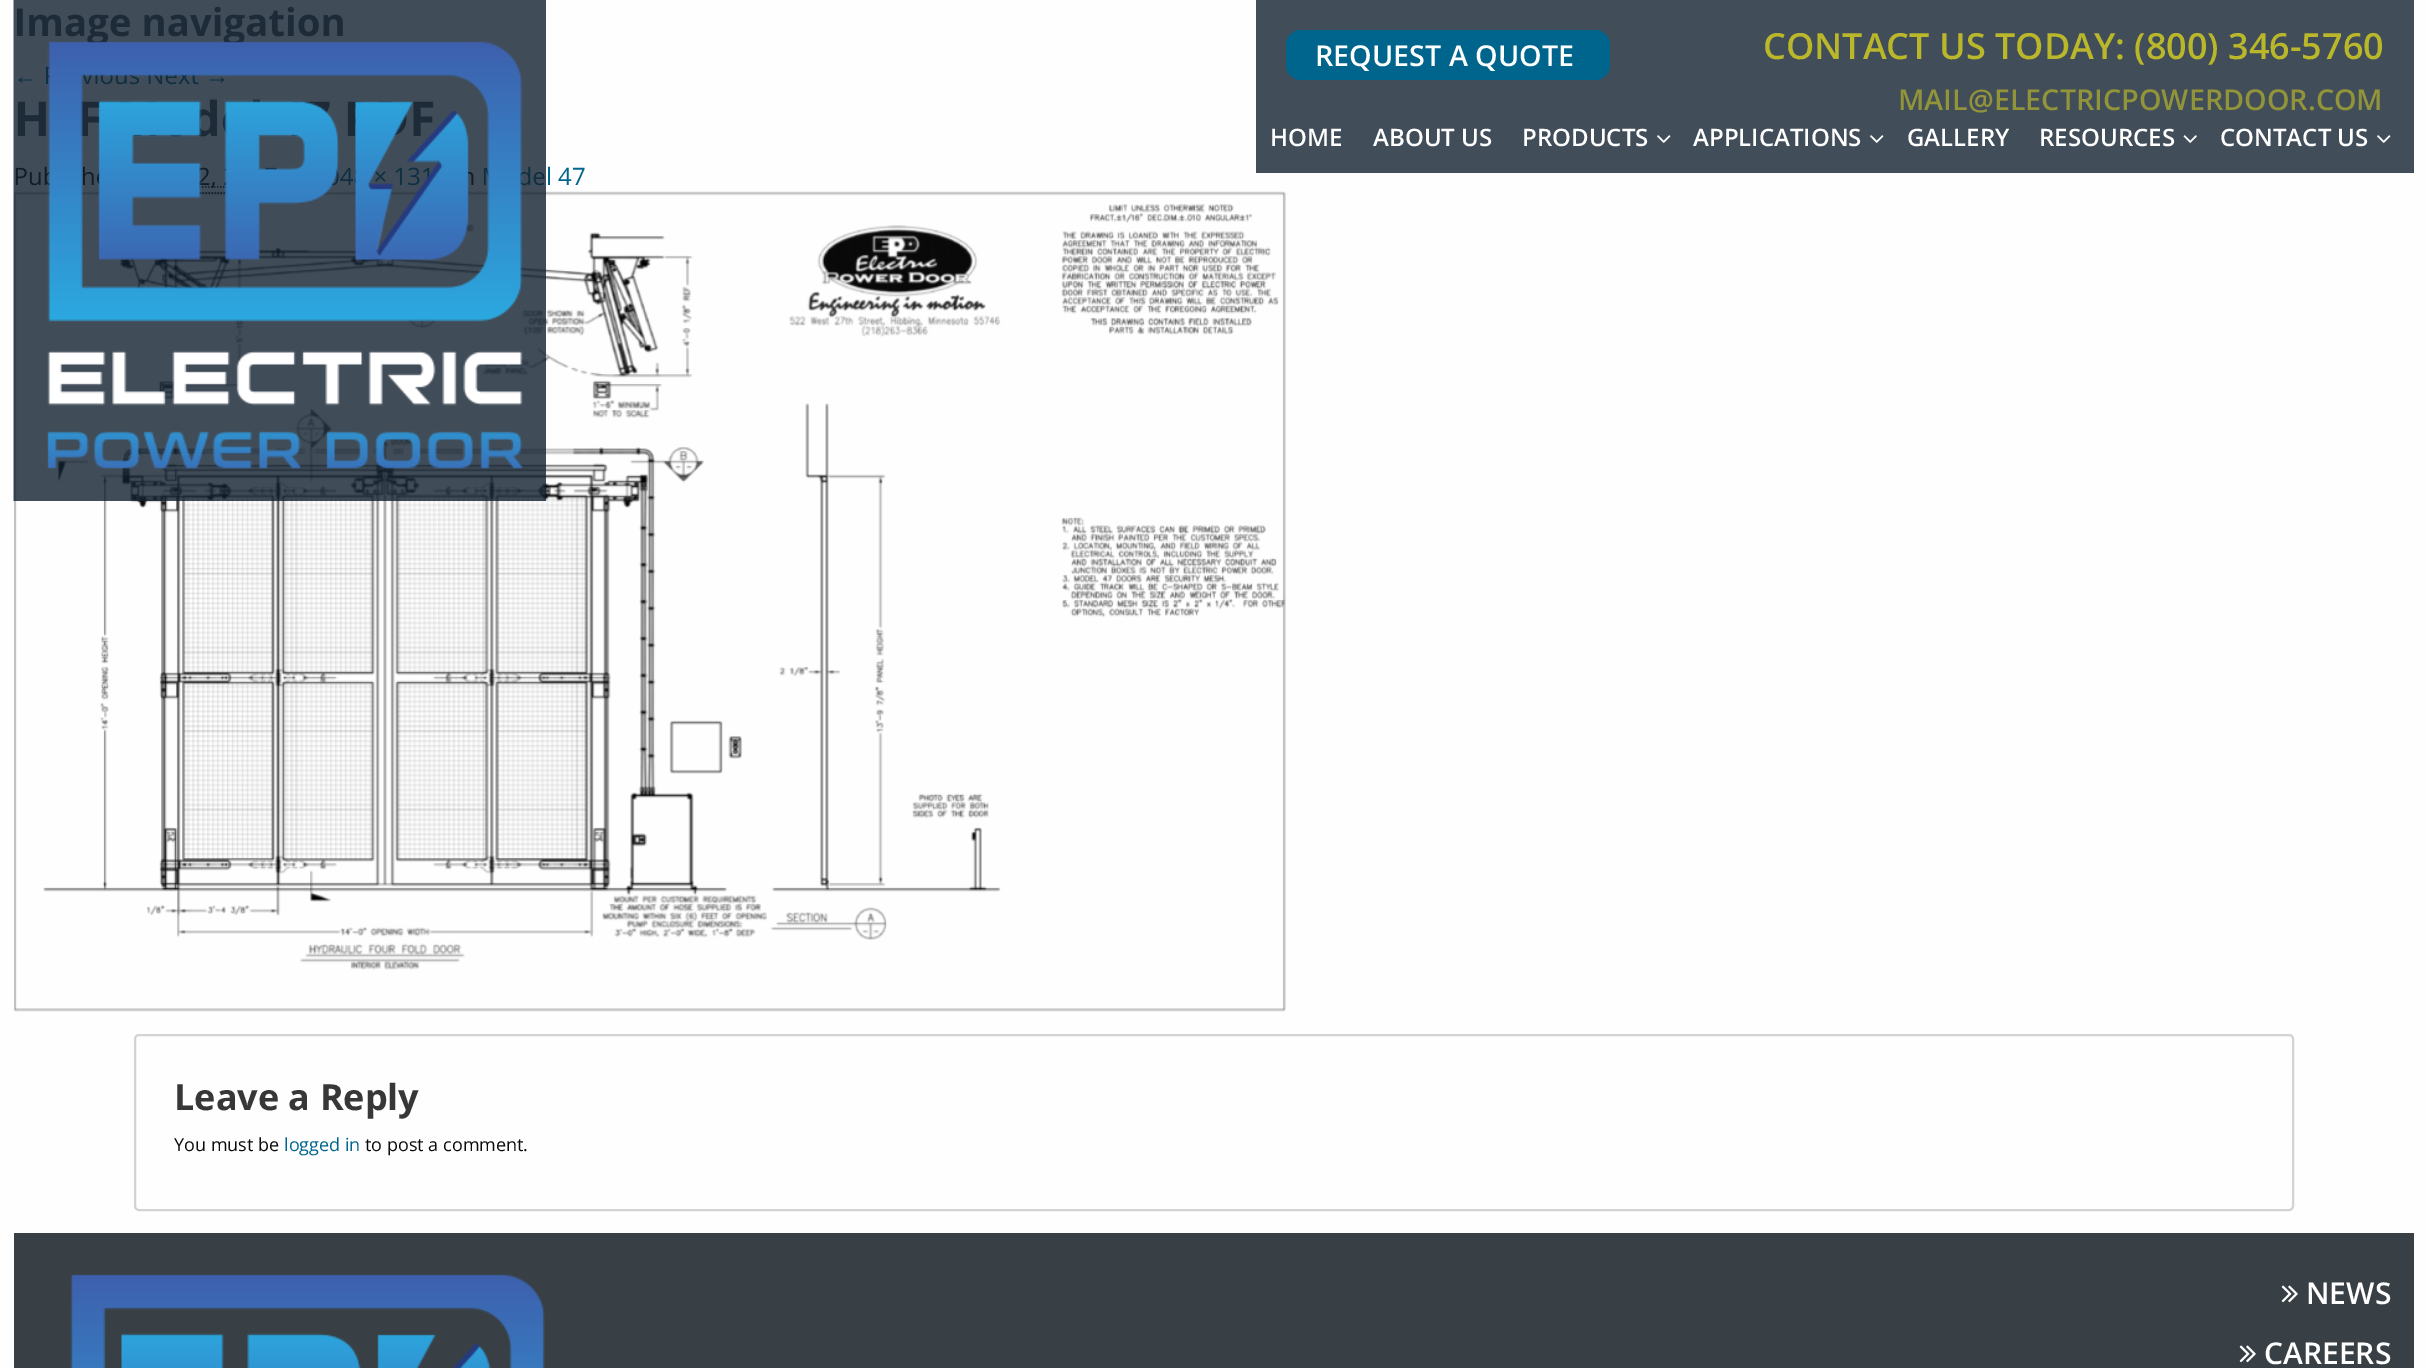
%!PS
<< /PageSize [2427 1368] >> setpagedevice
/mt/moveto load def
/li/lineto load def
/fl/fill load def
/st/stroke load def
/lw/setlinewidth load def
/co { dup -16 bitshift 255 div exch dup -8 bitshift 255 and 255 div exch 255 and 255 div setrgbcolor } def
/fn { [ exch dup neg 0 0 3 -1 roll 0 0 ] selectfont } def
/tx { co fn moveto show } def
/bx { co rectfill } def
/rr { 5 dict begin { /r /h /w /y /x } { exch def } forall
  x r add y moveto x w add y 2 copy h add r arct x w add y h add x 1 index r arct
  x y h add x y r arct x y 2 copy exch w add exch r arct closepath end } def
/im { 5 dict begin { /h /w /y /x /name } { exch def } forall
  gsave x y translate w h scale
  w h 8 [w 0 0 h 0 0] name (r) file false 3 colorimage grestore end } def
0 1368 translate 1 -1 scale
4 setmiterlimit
0 0 2427 1368 16#FEFEFE bx
16#0A0A0A co
1.5 lw
[1.5 1.5] 0 setdash
130 187 mt 278 187 li st
130.5 193 mt 277.5 193 li st
(media/4.raw) 14 191 1272 821 im
(media/1.raw) 13 0 533 501 im
1256 0 1158 173 16#414D59 bx
16#00658D co
1286 30 324 50 15 rr fl
(media/2.raw) 1657 135 14 8 im
(media/2.raw) 1870 135 14 8 im
(media/3.raw) 2183 135 14 8 im
(media/2.raw) 2377 135 14 8 im
16#D3D3D3 co
2 lw
[] 0 setdash
135 1035 2158 175 4 rr st
14 1233 2400 135 16#384045 bx
(media/5.raw) 70 1274 475 94 im
(media/6.raw) 2281 1285 17 18 im
(media/6.raw) 2239 1345 17 18 im
(REQUEST A QUOTE) 1315 66 /OpenSans-SemiBold 28.75 16#FFFFFF tx
(CONTACT US TODAY: \(800\) 346-5760) 1763 59 /OpenSans-SemiBold 36 16#BAB72B tx
(MAIL@ELECTRICPOWERDOOR.COM) 1898 110 /OpenSans-SemiBold 28.75 16#92943A tx
(HOME) 1270 146 /OpenSans-SemiBold 24 16#FFFFFF tx
(ABOUT US) 1373 146 /OpenSans-SemiBold 24 16#FFFFFF tx
(PRODUCTS) 1522 146 /OpenSans-SemiBold 24 16#FFFFFF tx
(APPLICATIONS) 1693 146 /OpenSans-SemiBold 24 16#FFFFFF tx
(GALLERY) 1907 146 /OpenSans-SemiBold 24 16#FFFFFF tx
(RESOURCES) 2039 146 /OpenSans-SemiBold 24 16#FFFFFF tx
(CONTACT US) 2220 146 /OpenSans-SemiBold 24 16#FFFFFF tx
(l 47) 546 185 /OpenSans-Regular 24 16#00658D tx
(Leave a Reply) 174 1110 /OpenSans-Bold 36 16#373737 tx
(You must be) 174 1151 /OpenSans-Regular 18 16#0A0A0A tx
(logged in) 284 1151 /OpenSans-Regular 18 16#00658D tx
(to post a comment.) 365 1151 /OpenSans-Regular 18 16#0A0A0A tx
(NEWS) 2306 1304 /OpenSans-SemiBold 30 16#FFFFFF tx
(CAREERS) 2264 1364 /OpenSans-SemiBold 30 16#FFFFFF tx
showpage
